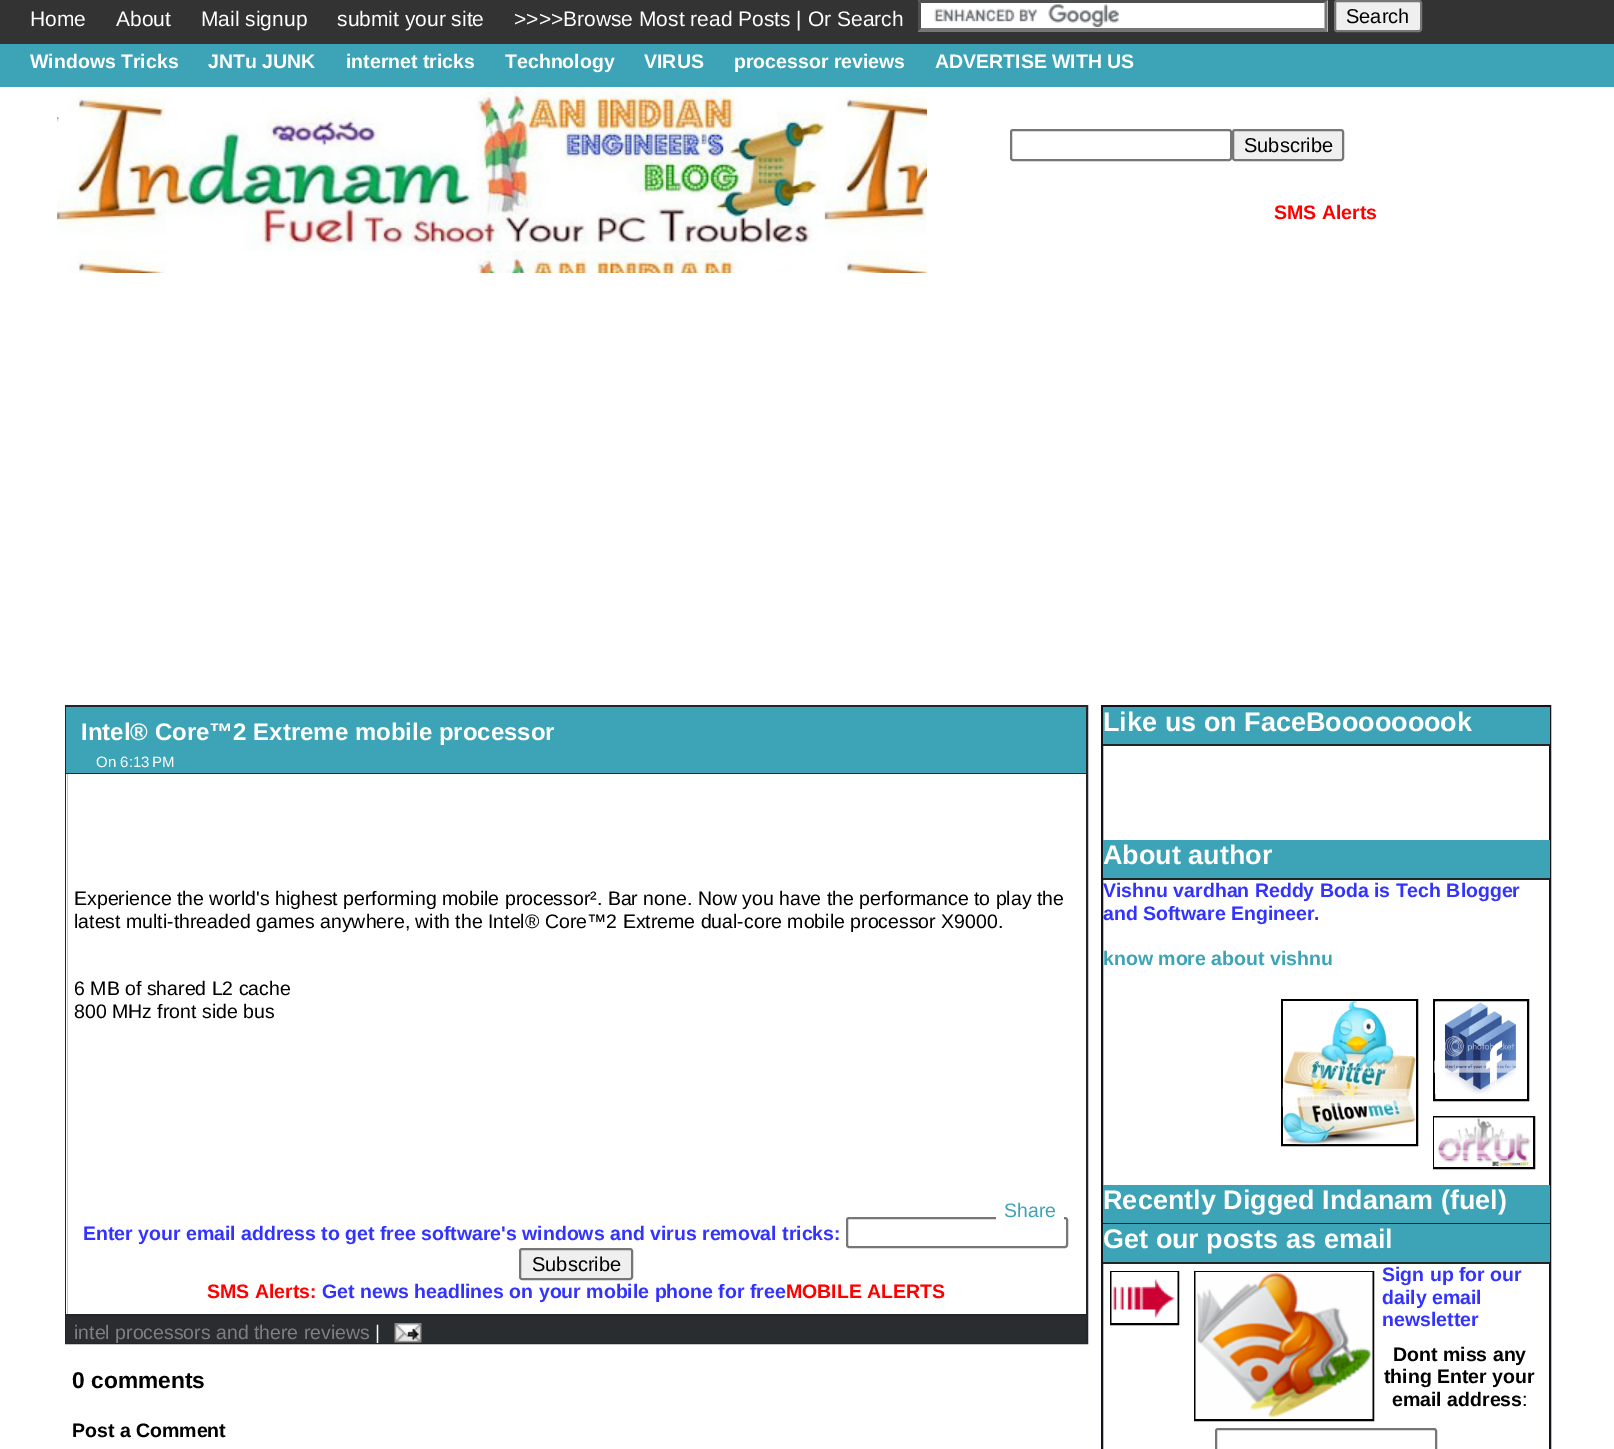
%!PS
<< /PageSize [1614 1449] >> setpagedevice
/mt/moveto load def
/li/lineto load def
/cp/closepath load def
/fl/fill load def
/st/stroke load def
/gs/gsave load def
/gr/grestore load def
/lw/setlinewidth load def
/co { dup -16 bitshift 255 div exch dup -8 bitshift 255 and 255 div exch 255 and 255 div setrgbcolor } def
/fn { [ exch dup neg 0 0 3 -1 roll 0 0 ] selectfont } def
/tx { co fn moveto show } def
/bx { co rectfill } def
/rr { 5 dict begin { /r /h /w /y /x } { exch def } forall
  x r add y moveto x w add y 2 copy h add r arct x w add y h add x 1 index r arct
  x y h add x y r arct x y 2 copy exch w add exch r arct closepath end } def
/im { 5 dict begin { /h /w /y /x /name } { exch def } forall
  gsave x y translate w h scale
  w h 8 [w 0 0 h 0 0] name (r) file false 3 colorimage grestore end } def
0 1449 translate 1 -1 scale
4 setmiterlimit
0 0 1614 1449 16#FFFFFF bx
0 0 1614 44 16#333333 bx
918 0 410 32 16#FFFFFF bx
(media/1.raw) 934 4 185 23 im
16#4F4F4F co
918 0 mt 1328 0 li 1324 3 li 921 3 li cp fl
16#767676 co
1327.5 0 mt 1327.5 31.5 li 1324.5 28.5 li 1324.5 3 li cp fl
1328 32 mt 918 32 li 921 28 li 1324 28 li cp fl
16#4F4F4F co
918 31.5 mt 918 0 li 921 3 li 921 28.5 li cp fl
16#EFEFEF co
1335 1 86 30 2 rr gs fl gr
16#767676 co
2 lw
st
0 44 1614 43 16#3DA4B7 bx
(media/2.raw) 57 87 870 186 im
(media/3.raw) 57 117 2 5 im
16#767676 co
1011 130 220 30 2 rr st
16#EFEFEF co
1233 130 110 30 2 rr gs fl gr
16#767676 co
st
16#222629 co
66 706 1021 637 rectstroke
66 707 1020 66 16#3DA4B7 bx
66 773 1020 1 16#222629 bx
66 774 1 540 16#FFFFFF bx
16#767676 co
847 1218 220 29 2 rr st
16#EFEFEF co
520 1249 112 30 2 rr gs fl gr
16#767676 co
st
66 1316 1020 27 16#292D2F bx
66 1314 1020 2 16#222629 bx
(media/4.raw) 394 1323 28 20 im
16#121218 co
1102 706 448 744 rectstroke
1103 707 447 37 16#3DA4B7 bx
1103 744 447 2 16#222629 bx
1103 840 447 38 16#3DA4B7 bx
1103 878 447 2 16#222629 bx
16#000000 co
1282 1000 135 145 rectstroke
(media/5.raw) 1282 1000 134 145 im
1434 1000 94 100 rectstroke
(media/6.raw) 1434 1002 83 92 im
1434 1117 100 51 rectstroke
(media/7.raw) 1434 1117 99 50 im
16#FFFFFF co
996 1191 68 41 8 rr fl
1103 1185 447 38 16#3DA4B7 bx
1103 1223 447 1 16#222629 bx
1103 1224 447 38 16#3DA4B7 bx
1103 1262 447 2 16#222629 bx
16#000000 co
1111 1272 67 52 rectstroke
(media/8.raw) 1111 1272 67 51 im
1195 1272 178 148 rectstroke
(media/9.raw) 1195 1272 178 147 im
16#767676 co
1216 1429 220 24 2 rr st
(Home) 30 26 /LiberationSans-Regular 21 16#FFFFFF tx
(About) 116 26 /LiberationSans-Regular 21 16#FFFFFF tx
(Mail signup) 201 26 /LiberationSans-Regular 21 16#FFFFFF tx
(submit your site) 337 26 /LiberationSans-Regular 21 16#FFFFFF tx
(>>>>Browse Most read Posts | Or Search) 514 26 /LiberationSans-Regular 21 16#FFFFFF tx
(Search) 1346 23 /LiberationSans-Regular 20 16#000000 tx
(Windows Tricks) 30 68 /LiberationSans-Bold 19.5 16#FFFFFF tx
(JNTu JUNK) 208 68 /LiberationSans-Bold 19.5 16#FFFFFF tx
(internet tricks) 346 68 /LiberationSans-Bold 19.5 16#FFFFFF tx
(Technology) 505 68 /LiberationSans-Bold 19.5 16#FFFFFF tx
(VIRUS) 644 68 /LiberationSans-Bold 19.5 16#FFFFFF tx
(processor reviews) 734 68 /LiberationSans-Bold 19.5 16#FFFFFF tx
(ADVERTISE WITH US) 935 68 /LiberationSans-Bold 19.5 16#FFFFFF tx
(Subscribe) 1244 152 /LiberationSans-Regular 20 16#000000 tx
(SMS Alerts) 1274 219 /LiberationSans-Bold 19.5 16#FF0000 tx
(Intel® Core™2 Extreme mobile processor) 81 740 /LiberationSans-Bold 24 16#FFFFFF tx
(On 6:13 PM) 96 767 /LiberationSans-Regular 15 16#FFFFFF tx
(Experience the world's highest performing mobile processor². Bar none. Now you have the performance to play the) 74 905 /LiberationSans-Regular 19.5 16#000000 tx
(latest multi-threaded games anywhere, with the Intel® Core™2 Extreme dual-core mobile processor X9000.) 74 928 /LiberationSans-Regular 19.5 16#000000 tx
(6 MB of shared L2 cache) 74 995 /LiberationSans-Regular 19.5 16#000000 tx
(800 MHz front side bus) 74 1018 /LiberationSans-Regular 19.5 16#000000 tx
(Enter your email address to get free software's windows and virus removal tricks:) 83 1240 /LiberationSans-Bold 19.5 16#3333FF tx
(Subscribe) 532 1271 /LiberationSans-Regular 20 16#000000 tx
(SMS Alerts:) 207 1298 /LiberationSans-Bold 19.5 16#FF0000 tx
(Get news headlines on your mobile phone for free) 322 1298 /LiberationSans-Bold 19.5 16#3333FF tx
(MOBILE ALERTS) 786 1298 /LiberationSans-Bold 19.5 16#FF0000 tx
(intel processors and there reviews) 74 1339 /LiberationSans-Regular 19.5 16#7F7F7F tx
(|) 375 1339 /LiberationSans-Regular 19.5 16#FFFFFF tx
(0 comments) 72 1388 /LiberationSans-Bold 22.75 16#000000 tx
(Post a Comment) 72 1437 /LiberationSans-Bold 19.5 16#000000 tx
(Like us on FaceBooooooook) 1103 731 /LiberationSans-Bold 27 16#FFFFFF tx
(About author) 1103 864 /LiberationSans-Bold 27 16#FFFFFF tx
(Vishnu vardhan Reddy Boda is Tech Blogger) 1103 897 /LiberationSans-Bold 19.5 16#3333FF tx
(and Software Engineer.) 1103 920 /LiberationSans-Bold 19.5 16#3333FF tx
(know more about vishnu) 1103 965 /LiberationSans-Bold 19.5 16#3DA4B7 tx
(Share) 1004 1217 /LiberationSans-Regular 19.5 16#3DA4B7 tx
(Recently Digged Indanam \(fuel\)) 1103 1209 /LiberationSans-Bold 27 16#FFFFFF tx
(Get our posts as email) 1103 1248 /LiberationSans-Bold 27 16#FFFFFF tx
(Sign up for our) 1382 1281 /LiberationSans-Bold 19.5 16#3333FF tx
(daily email) 1382 1304 /LiberationSans-Bold 19.5 16#3333FF tx
(newsletter) 1382 1326 /LiberationSans-Bold 19.5 16#3333FF tx
(Dont miss any) 1393 1361 /LiberationSans-Bold 19.5 16#000000 tx
(thing Enter your) 1384 1383 /LiberationSans-Bold 19.5 16#000000 tx
(email address) 1392 1406 /LiberationSans-Bold 19.5 16#000000 tx
(:) 1522 1406 /LiberationSans-Regular 19.5 16#000000 tx
showpage
